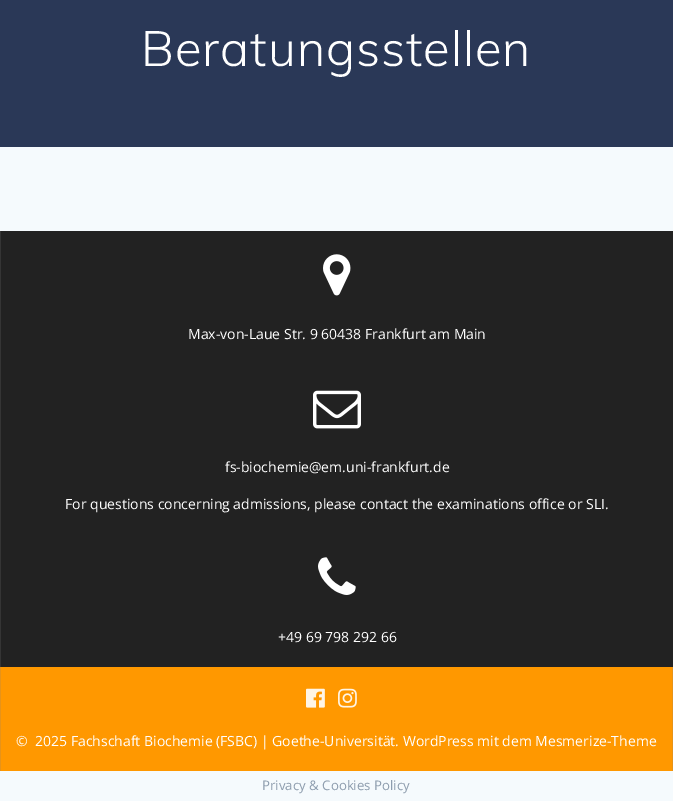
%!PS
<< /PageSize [673 801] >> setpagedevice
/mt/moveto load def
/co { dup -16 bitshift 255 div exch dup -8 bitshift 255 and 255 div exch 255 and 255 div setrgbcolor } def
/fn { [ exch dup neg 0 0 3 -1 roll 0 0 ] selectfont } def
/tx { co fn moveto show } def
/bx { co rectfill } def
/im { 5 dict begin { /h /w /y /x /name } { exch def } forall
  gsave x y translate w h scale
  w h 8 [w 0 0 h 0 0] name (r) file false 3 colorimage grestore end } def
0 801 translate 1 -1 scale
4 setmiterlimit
0 0 673 801 16#F5FAFD bx
0 0 673 147 16#2A3857 bx
1 231 672 436 16#222222 bx
0 231 1 436 16#353535 bx
(media/1.raw) 323 254 28 42 im
(media/2.raw) 313 390 48 39 im
(media/3.raw) 318 557 38 38 im
1 667 671 104 16#FF9800 bx
672 667 1 104 16#E6931A bx
0 667 1 104 16#E6931A bx
(media/4.raw) 306 688 19 20 im
(media/5.raw) 338 688 19 20 im
/Muli-Light 49 fn
16#FFFFFF co
141 66 mt .9 0 (Beratungsstellen) ashow
(Max-von-Laue Str. 9 60438 Frankfurt am Main) 188 339 /OpenSans-Regular 14 16#FFFFFF tx
(fs-biochemie@em.uni-frankfurt.de) 225 472 /OpenSans-Regular 14 16#FFFFFF tx
(For questions concerning admissions, please contact the examinations office or SLI.) 65 509 /OpenSans-Regular 14 16#FFFFFF tx
(+49 69 798 292 66) 278 642 /OpenSans-Regular 14 16#FFFFFF tx
(©  2025 Fachschaft Biochemie \(FSBC\) | Goethe-Universität. WordPress mit dem Mesmerize-Theme) 16 746 /OpenSans-Regular 14 16#FFFFFF tx
(Privacy & Cookies Policy) 262 790 /OpenSans-Regular 13.25 16#8E9DAE tx
showpage
